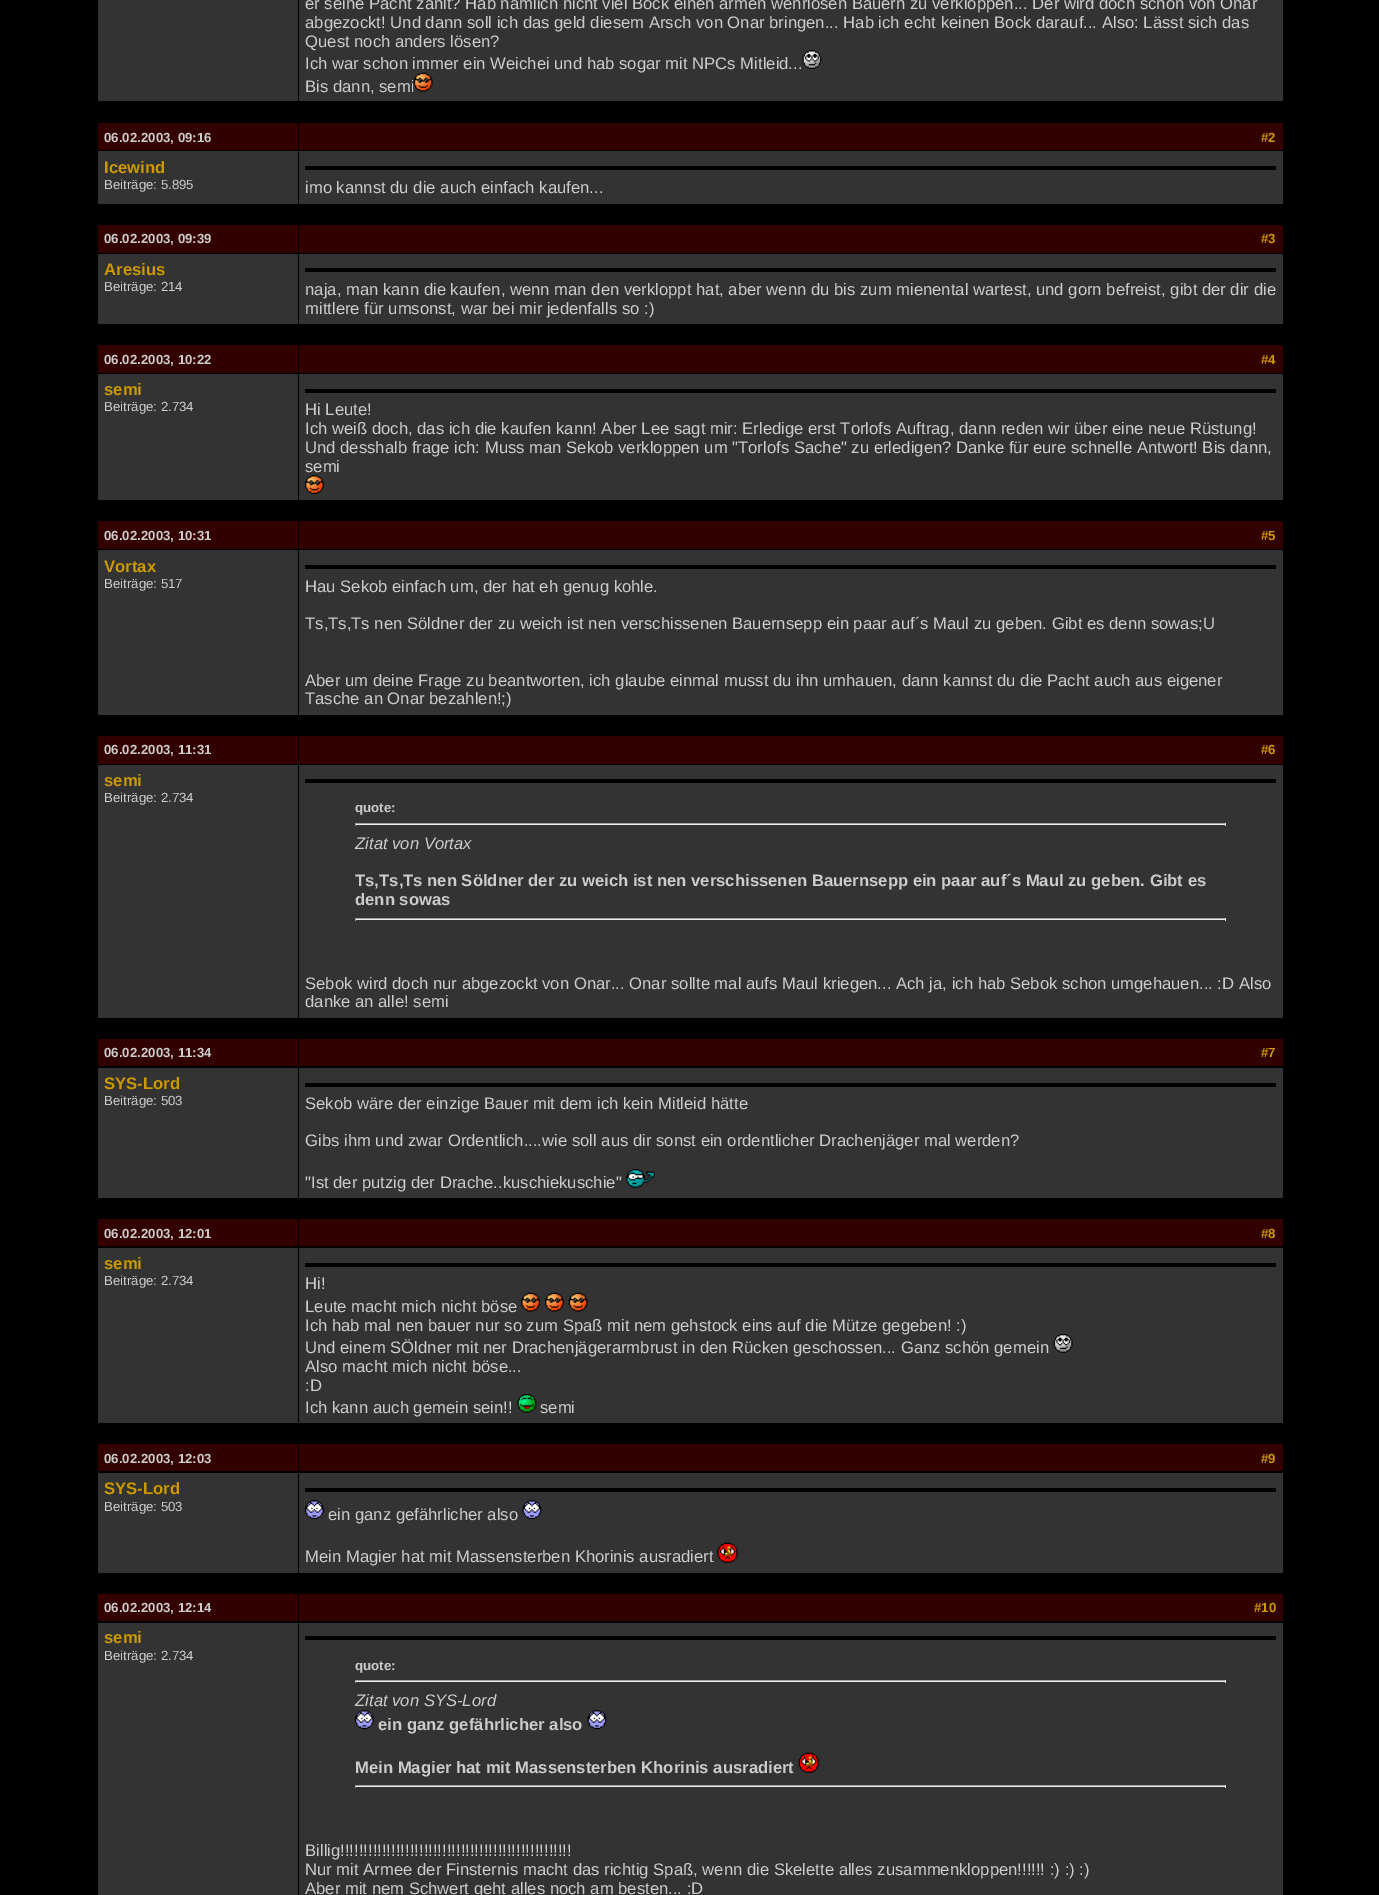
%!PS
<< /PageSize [1379 1895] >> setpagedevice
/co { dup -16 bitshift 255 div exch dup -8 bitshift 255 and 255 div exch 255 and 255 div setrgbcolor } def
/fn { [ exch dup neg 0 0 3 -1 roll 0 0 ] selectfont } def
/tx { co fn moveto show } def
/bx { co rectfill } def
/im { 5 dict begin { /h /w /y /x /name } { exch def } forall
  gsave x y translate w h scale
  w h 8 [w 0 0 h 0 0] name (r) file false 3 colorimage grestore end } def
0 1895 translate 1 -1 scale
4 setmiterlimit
0 0 1379 1895 16#000000 bx
98 0 200 101 16#333333 bx
299 0 984 101 16#333333 bx
(media/1.raw) 802 50 20 19 im
98 123 200 27 16#330000 bx
299 123 984 27 16#330000 bx
98 151 200 53 16#333333 bx
299 151 984 53 16#333333 bx
305 166 971 4 16#000000 bx
98 225 200 28 16#330000 bx
299 225 984 28 16#330000 bx
98 254 200 70 16#333333 bx
299 254 984 70 16#333333 bx
305 268 971 4 16#000000 bx
98 345 200 28 16#330000 bx
299 345 984 28 16#330000 bx
98 374 200 126 16#333333 bx
299 374 984 126 16#333333 bx
305 389 971 4 16#000000 bx
(media/3.raw) 305 475 19 19 im
98 521 200 28 16#330000 bx
299 521 984 28 16#330000 bx
98 550 200 165 16#333333 bx
299 550 984 165 16#333333 bx
305 565 971 4 16#000000 bx
98 736 200 28 16#330000 bx
299 736 984 28 16#330000 bx
98 765 200 253 16#333333 bx
299 765 984 253 16#333333 bx
305 779 971 4 16#000000 bx
355 823 871 1 16#9F9F9F bx
1225 823 1 3 16#EEEEEE bx
355 824 871 1 16#EEEEEE bx
355 823 1 3 16#9F9F9F bx
355 918 871 1 16#9F9F9F bx
1225 918 1 3 16#EEEEEE bx
355 919 871 1 16#EEEEEE bx
355 918 1 3 16#9F9F9F bx
98 1039 200 27 16#330000 bx
299 1039 984 27 16#330000 bx
98 1068 200 130 16#333333 bx
299 1068 984 130 16#333333 bx
305 1083 971 4 16#000000 bx
(media/4.raw) 626 1169 29 19 im
98 1219 200 27 16#330000 bx
299 1219 984 27 16#330000 bx
98 1248 200 175 16#333333 bx
299 1248 984 175 16#333333 bx
305 1263 971 4 16#000000 bx
(media/5.raw) 521 1292 19 20 im
(media/6.raw) 545 1292 19 20 im
(media/7.raw) 568 1292 20 20 im
(media/8.raw) 1053 1334 20 19 im
(media/9.raw) 517 1394 20 19 im
98 1444 200 27 16#330000 bx
299 1444 984 27 16#330000 bx
98 1473 200 100 16#333333 bx
299 1473 984 100 16#333333 bx
305 1488 971 4 16#000000 bx
(media/10.raw) 305 1500 19 20 im
(media/11.raw) 522 1500 20 20 im
(media/12.raw) 717 1542 21 21 im
98 1594 200 27 16#330000 bx
299 1594 984 27 16#330000 bx
98 1623 200 272 16#333333 bx
299 1623 984 272 16#333333 bx
305 1636 971 4 16#000000 bx
355 1680 871 1 16#9F9F9F bx
1225 1680 1 3 16#EEEEEE bx
355 1681 871 1 16#EEEEEE bx
355 1680 1 3 16#9F9F9F bx
(media/10.raw) 355 1710 19 20 im
(media/13.raw) 587 1710 20 20 im
(media/14.raw) 798 1752 21 21 im
355 1785 871 1 16#9F9F9F bx
1225 1785 1 3 16#EEEEEE bx
355 1786 871 1 16#EEEEEE bx
355 1785 1 3 16#9F9F9F bx
(er seine Pacht zahlt? Hab nämlich nicht viel Bock einen armen wehrlosen Bauern zu verkloppen... Der wird doch schon von Onar) 305 9 /LiberationSans-Regular 16.67 16#CCCCCC tx
(abgezockt! Und dann soll ich das geld diesem Arsch von Onar bringen... Hab ich echt keinen Bock darauf... Also: Lässt sich das) 305 28 /LiberationSans-Regular 16.67 16#CCCCCC tx
(Quest noch anders lösen?) 305 47 /LiberationSans-Regular 16.67 16#CCCCCC tx
(Ich war schon immer ein Weichei und hab sogar mit NPCs Mitleid...) 305 69 /LiberationSans-Regular 16.67 16#CCCCCC tx
(Bis dann, semi) 305 92 /LiberationSans-Regular 16.67 16#CCCCCC tx
(media/2.raw) 413 72 20 20 im
(06.02.2003, 09:16) 104 142 /LiberationSans-Bold 13.25 16#CCCCCC tx
(#2) 1261 142 /LiberationSans-Bold 13.25 16#CC9900 tx
(Icewind) 104 173 /LiberationSans-Bold 16.67 16#CC9900 tx
(Beiträge: 5.895) 104 189 /LiberationSans-Regular 13.25 16#CCCCCC tx
(imo kannst du die auch einfach kaufen...) 305 193 /LiberationSans-Regular 16.67 16#CCCCCC tx
(06.02.2003, 09:39) 104 243 /LiberationSans-Bold 13.25 16#CCCCCC tx
(#3) 1261 243 /LiberationSans-Bold 13.25 16#CC9900 tx
(Aresius) 104 275 /LiberationSans-Bold 16.67 16#CC9900 tx
(Beiträge: 214) 104 291 /LiberationSans-Regular 13.25 16#CCCCCC tx
(naja, man kann die kaufen, wenn man den verkloppt hat, aber wenn du bis zum mienental wartest, und gorn befreist, gibt der dir die) 305 295 /LiberationSans-Regular 16.67 16#CCCCCC tx
(mittlere für umsonst, war bei mir jedenfalls so :\)) 305 314 /LiberationSans-Regular 16.67 16#CCCCCC tx
(06.02.2003, 10:22) 104 364 /LiberationSans-Bold 13.25 16#CCCCCC tx
(#4) 1261 364 /LiberationSans-Bold 13.25 16#CC9900 tx
(semi) 104 395 /LiberationSans-Bold 16.67 16#CC9900 tx
(Beiträge: 2.734) 104 411 /LiberationSans-Regular 13.25 16#CCCCCC tx
(Hi Leute!) 305 415 /LiberationSans-Regular 16.67 16#CCCCCC tx
(Ich weiß doch, das ich die kaufen kann! Aber Lee sagt mir: Erledige erst Torlofs Auftrag, dann reden wir über eine neue Rüstung!) 305 434 /LiberationSans-Regular 16.67 16#CCCCCC tx
(Und desshalb frage ich: Muss man Sekob verkloppen um "Torlofs Sache" zu erledigen? Danke für eure schnelle Antwort! Bis dann,) 305 453 /LiberationSans-Regular 16.67 16#CCCCCC tx
(semi) 305 472 /LiberationSans-Regular 16.67 16#CCCCCC tx
(06.02.2003, 10:31) 104 540 /LiberationSans-Bold 13.25 16#CCCCCC tx
(#5) 1261 540 /LiberationSans-Bold 13.25 16#CC9900 tx
(Vortax) 104 572 /LiberationSans-Bold 16.67 16#CC9900 tx
(Beiträge: 517) 104 588 /LiberationSans-Regular 13.25 16#CCCCCC tx
(Hau Sekob einfach um, der hat eh genug kohle.) 305 592 /LiberationSans-Regular 16.67 16#CCCCCC tx
(Ts,Ts,Ts nen Söldner der zu weich ist nen verschissenen Bauernsepp ein paar auf´s Maul zu geben. Gibt es denn sowas;U) 305 629 /LiberationSans-Regular 16.67 16#CCCCCC tx
(Aber um deine Frage zu beantworten, ich glaube einmal musst du ihn umhauen, dann kannst du die Pacht auch aus eigener) 305 686 /LiberationSans-Regular 16.67 16#CCCCCC tx
(Tasche an Onar bezahlen!;\)) 305 704 /LiberationSans-Regular 16.67 16#CCCCCC tx
(06.02.2003, 11:31) 104 754 /LiberationSans-Bold 13.25 16#CCCCCC tx
(#6) 1261 754 /LiberationSans-Bold 13.25 16#CC9900 tx
(semi) 104 786 /LiberationSans-Bold 16.67 16#CC9900 tx
(Beiträge: 2.734) 104 802 /LiberationSans-Regular 13.25 16#CCCCCC tx
(quote:) 355 812 /LiberationSans-Bold 13.25 16#CCCCCC tx
(Zitat von Vortax) 355 849 /LiberationSans-Italic 16.67 16#CCCCCC tx
(Ts,Ts,Ts nen Söldner der zu weich ist nen verschissenen Bauernsepp ein paar auf´s Maul zu geben. Gibt es) 355 886 /LiberationSans-Bold 16.67 16#CCCCCC tx
(denn sowas) 355 905 /LiberationSans-Bold 16.67 16#CCCCCC tx
(Sebok wird doch nur abgezockt von Onar... Onar sollte mal aufs Maul kriegen... Ach ja, ich hab Sebok schon umgehauen... :D Also) 305 989 /LiberationSans-Regular 16.67 16#CCCCCC tx
(danke an alle! semi) 305 1007 /LiberationSans-Regular 16.67 16#CCCCCC tx
(06.02.2003, 11:34) 104 1057 /LiberationSans-Bold 13.25 16#CCCCCC tx
(#7) 1261 1057 /LiberationSans-Bold 13.25 16#CC9900 tx
(SYS-Lord) 104 1089 /LiberationSans-Bold 16.67 16#CC9900 tx
(Beiträge: 503) 104 1105 /LiberationSans-Regular 13.25 16#CCCCCC tx
(Sekob wäre der einzige Bauer mit dem ich kein Mitleid hätte) 305 1109 /LiberationSans-Regular 16.67 16#CCCCCC tx
(Gibs ihm und zwar Ordentlich....wie soll aus dir sonst ein ordentlicher Drachenjäger mal werden?) 305 1146 /LiberationSans-Regular 16.67 16#CCCCCC tx
("Ist der putzig der Drache..kuschiekuschie") 305 1188 /LiberationSans-Regular 16.67 16#CCCCCC tx
(06.02.2003, 12:01) 104 1238 /LiberationSans-Bold 13.25 16#CCCCCC tx
(#8) 1261 1238 /LiberationSans-Bold 13.25 16#CC9900 tx
(semi) 104 1269 /LiberationSans-Bold 16.67 16#CC9900 tx
(Beiträge: 2.734) 104 1285 /LiberationSans-Regular 13.25 16#CCCCCC tx
(Hi!) 305 1289 /LiberationSans-Regular 16.67 16#CCCCCC tx
(Leute macht mich nicht böse) 305 1312 /LiberationSans-Regular 16.67 16#CCCCCC tx
(Ich hab mal nen bauer nur so zum Spaß mit nem gehstock eins auf die Mütze gegeben! :\)) 305 1331 /LiberationSans-Regular 16.67 16#CCCCCC tx
(Und einem SÖldner mit ner Drachenjägerarmbrust in den Rücken geschossen... Ganz schön gemein) 305 1353 /LiberationSans-Regular 16.67 16#CCCCCC tx
(Also macht mich nicht böse...) 305 1372 /LiberationSans-Regular 16.67 16#CCCCCC tx
(:D) 305 1391 /LiberationSans-Regular 16.67 16#CCCCCC tx
(Ich kann auch gemein sein!!) 305 1413 /LiberationSans-Regular 16.67 16#CCCCCC tx
(semi) 540 1413 /LiberationSans-Regular 16.67 16#CCCCCC tx
(06.02.2003, 12:03) 104 1463 /LiberationSans-Bold 13.25 16#CCCCCC tx
(#9) 1261 1463 /LiberationSans-Bold 13.25 16#CC9900 tx
(SYS-Lord) 104 1494 /LiberationSans-Bold 16.67 16#CC9900 tx
(Beiträge: 503) 104 1511 /LiberationSans-Regular 13.25 16#CCCCCC tx
(ein ganz gefährlicher also) 328 1520 /LiberationSans-Regular 16.67 16#CCCCCC tx
(Mein Magier hat mit Massensterben Khorinis ausradiert) 305 1562 /LiberationSans-Regular 16.67 16#CCCCCC tx
(06.02.2003, 12:14) 104 1612 /LiberationSans-Bold 13.25 16#CCCCCC tx
(#10) 1254 1612 /LiberationSans-Bold 13.25 16#CC9900 tx
(semi) 104 1643 /LiberationSans-Bold 16.67 16#CC9900 tx
(Beiträge: 2.734) 104 1660 /LiberationSans-Regular 13.25 16#CCCCCC tx
(quote:) 355 1670 /LiberationSans-Bold 13.25 16#CCCCCC tx
(Zitat von SYS-Lord) 355 1706 /LiberationSans-Italic 16.67 16#CCCCCC tx
(ein ganz gefährlicher also) 378 1730 /LiberationSans-Bold 16.67 16#CCCCCC tx
(Mein Magier hat mit Massensterben Khorinis ausradiert) 355 1773 /LiberationSans-Bold 16.67 16#CCCCCC tx
(Billig!!!!!!!!!!!!!!!!!!!!!!!!!!!!!!!!!!!!!!!!!!!!!!!!!!) 305 1856 /LiberationSans-Regular 16.67 16#CCCCCC tx
(Nur mit Armee der Finsternis macht das richtig Spaß, wenn die Skelette alles zusammenkloppen!!!!!! :\) :\) :\)) 305 1875 /LiberationSans-Regular 16.67 16#CCCCCC tx
(Aber mit nem Schwert geht alles noch am besten... :D) 305 1894 /LiberationSans-Regular 16.67 16#CCCCCC tx
showpage
